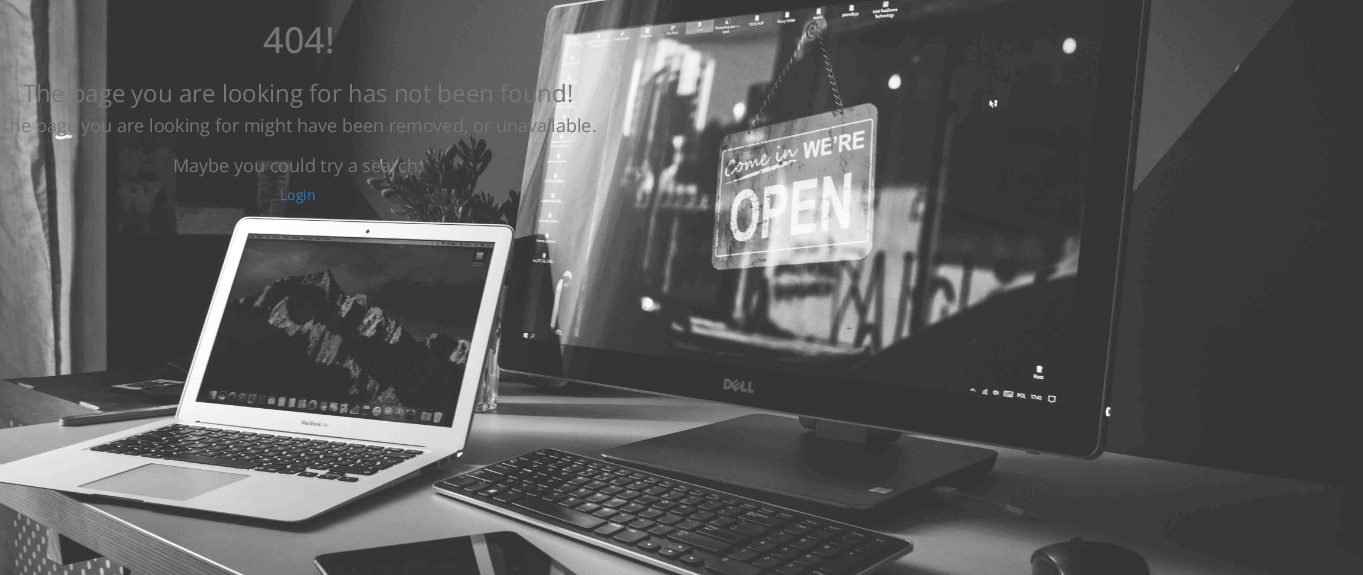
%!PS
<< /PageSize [1363 575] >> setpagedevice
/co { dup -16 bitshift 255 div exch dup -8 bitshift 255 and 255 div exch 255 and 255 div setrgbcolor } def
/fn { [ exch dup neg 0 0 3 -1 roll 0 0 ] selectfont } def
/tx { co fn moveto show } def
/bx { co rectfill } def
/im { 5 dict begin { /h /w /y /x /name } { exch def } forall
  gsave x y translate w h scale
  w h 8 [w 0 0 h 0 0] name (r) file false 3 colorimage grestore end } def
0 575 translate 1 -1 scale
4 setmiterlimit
0 0 1363 575 16#FFFFFF bx
(media/1.raw) 0 0 1363 575 im
(404!) 263 53 /OpenSans-Medium 36 16#767676 tx
(The page you are looking for has not been found!) 23 102 /OpenSans-Regular 24 16#767676 tx
(he page you are looking for might have been removed, or unavailable.) 10 132 /OpenSans-Regular 18 16#767676 tx
(Maybe you could try a search:) 173 172 /OpenSans-Regular 18 16#767676 tx
(Login) 280 200 /OpenSans-Regular 14 16#337AB7 tx
showpage
